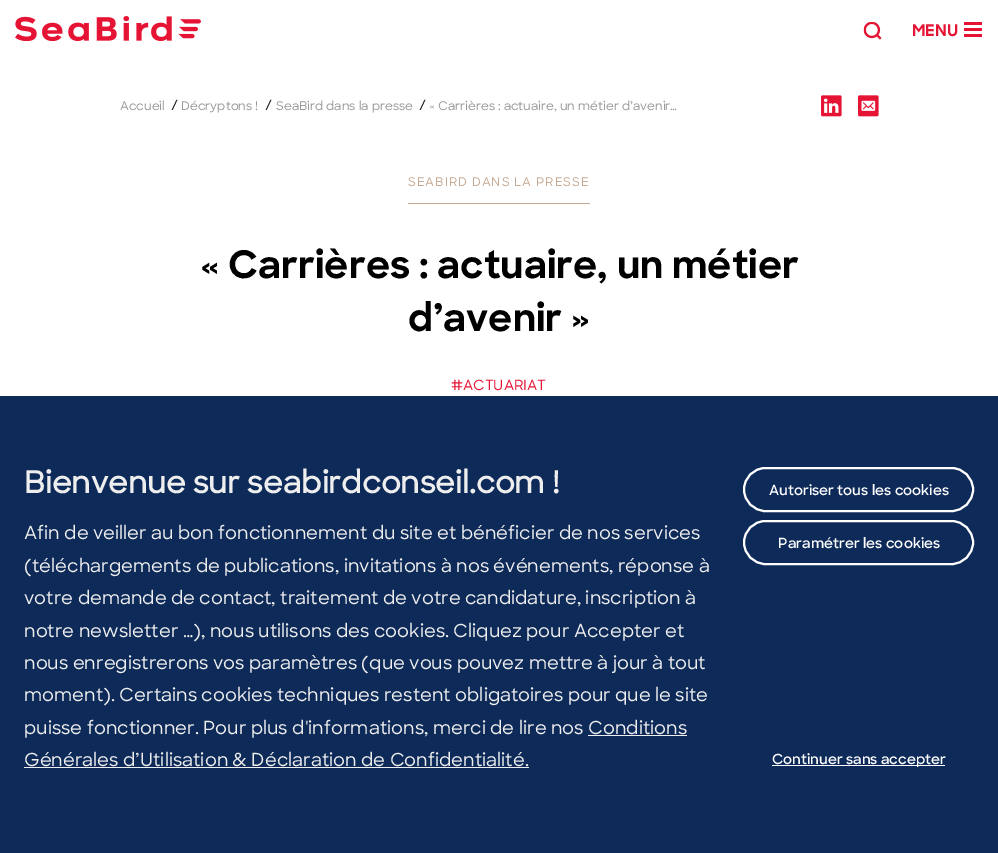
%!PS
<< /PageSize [998 853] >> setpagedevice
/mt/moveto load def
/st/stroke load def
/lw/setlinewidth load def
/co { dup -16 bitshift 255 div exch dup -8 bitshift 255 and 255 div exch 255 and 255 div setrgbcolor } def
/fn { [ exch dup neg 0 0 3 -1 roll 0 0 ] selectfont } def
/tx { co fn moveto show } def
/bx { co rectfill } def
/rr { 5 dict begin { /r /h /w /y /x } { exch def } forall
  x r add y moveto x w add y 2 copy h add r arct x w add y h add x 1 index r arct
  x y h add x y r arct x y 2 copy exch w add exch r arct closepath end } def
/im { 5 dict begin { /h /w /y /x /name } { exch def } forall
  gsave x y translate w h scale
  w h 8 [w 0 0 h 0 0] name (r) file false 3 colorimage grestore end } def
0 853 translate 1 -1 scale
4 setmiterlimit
0 0 998 853 16#FFFFFF bx
(media/1.raw) 15 16 186 25 im
(media/2.raw) 863 22 19 18 im
964 22 18 3 16#E61434 bx
964 28 18 3 16#E61434 bx
964 34 18 3 16#E61434 bx
(media/3.raw) 821 95 21 22 im
(media/4.raw) 858 95 21 22 im
408 203 182 1 16#C6A992 bx
0 396 998 457 16#0D2A59 bx
588 735 99 1 16#EEEEEE bx
24 767 505 1 16#EEEEEE bx
16#FFFFFF co
2 lw
744 468 229 43 21.5 rr st
744 521 229 43 21.5 rr st
772 765 173 1 16#FFFFFF bx
(MENU) 912 36 /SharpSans-Bold 16 16#E61434 tx
(Accueil) 120 110 /SharpSans-Medium 12 16#999999 tx
(/) 171 110 /SharpSans-Medium 14 16#222222 tx
(Décryptons !) 181 110 /SharpSans-Medium 12 16#999999 tx
(/) 265 110 /SharpSans-Medium 14 16#222222 tx
(SeaBird dans la presse) 276 110 /SharpSans-Medium 12 16#999999 tx
(/) 419 110 /SharpSans-Medium 14 16#222222 tx
(« Carrières : actuaire, un métier d’avenir…) 429 110 /SharpSans-Medium 12 16#999999 tx
16#C6A992 co
408 186 mt 1 0 (SEABIRD DANS LA PRESSE) ashow
(« Carrières : actuaire, un métier) 200 278 /SharpSans-Bold 38 16#000000 tx
(d’avenir ») 408 331 /SharpSans-Bold 38 16#000000 tx
(#ACTUARIAT) 451 390 /SharpSans-Medium 14 16#E61434 tx
(Bienvenue sur seabirdconseil.com !) 24 493 /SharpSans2-Bold 30 16#EEEEEE tx
(Afin de veiller au bon fonctionnement du site et bénéficier de nos services) 24 539 /SharpSans-Medium 18 16#EEEEEE tx
(\(téléchargements de publications, invitations à nos événements, réponse à) 24 572 /SharpSans-Medium 18 16#EEEEEE tx
(votre demande de contact, traitement de votre candidature, inscription à) 24 604 /SharpSans-Medium 18 16#EEEEEE tx
(notre newsletter …\), nous utilisons des cookies. Cliquez pour Accepter et) 24 637 /SharpSans-Medium 18 16#EEEEEE tx
(nous enregistrerons vos paramètres \(que vous pouvez mettre à jour à tout) 24 669 /SharpSans-Medium 18 16#EEEEEE tx
(moment\). Certains cookies techniques restent obligatoires pour que le site) 24 701 /SharpSans-Medium 18 16#EEEEEE tx
(puisse fonctionner. Pour plus d'informations, merci de lire nos Conditions) 24 734 /SharpSans-Medium 18 16#EEEEEE tx
(Générales d’Utilisation & Déclaration de Confidentialité.) 24 766 /SharpSans-Medium 18 16#EEEEEE tx
(Autoriser tous les cookies) 769 495 /SharpSans-SemiBold 14 16#FFFFFF tx
(Paramétrer les cookies) 778 548 /SharpSans-SemiBold 14 16#FFFFFF tx
(Continuer sans accepter) 772 764 /SharpSans-SemiBold 14 16#FFFFFF tx
showpage
